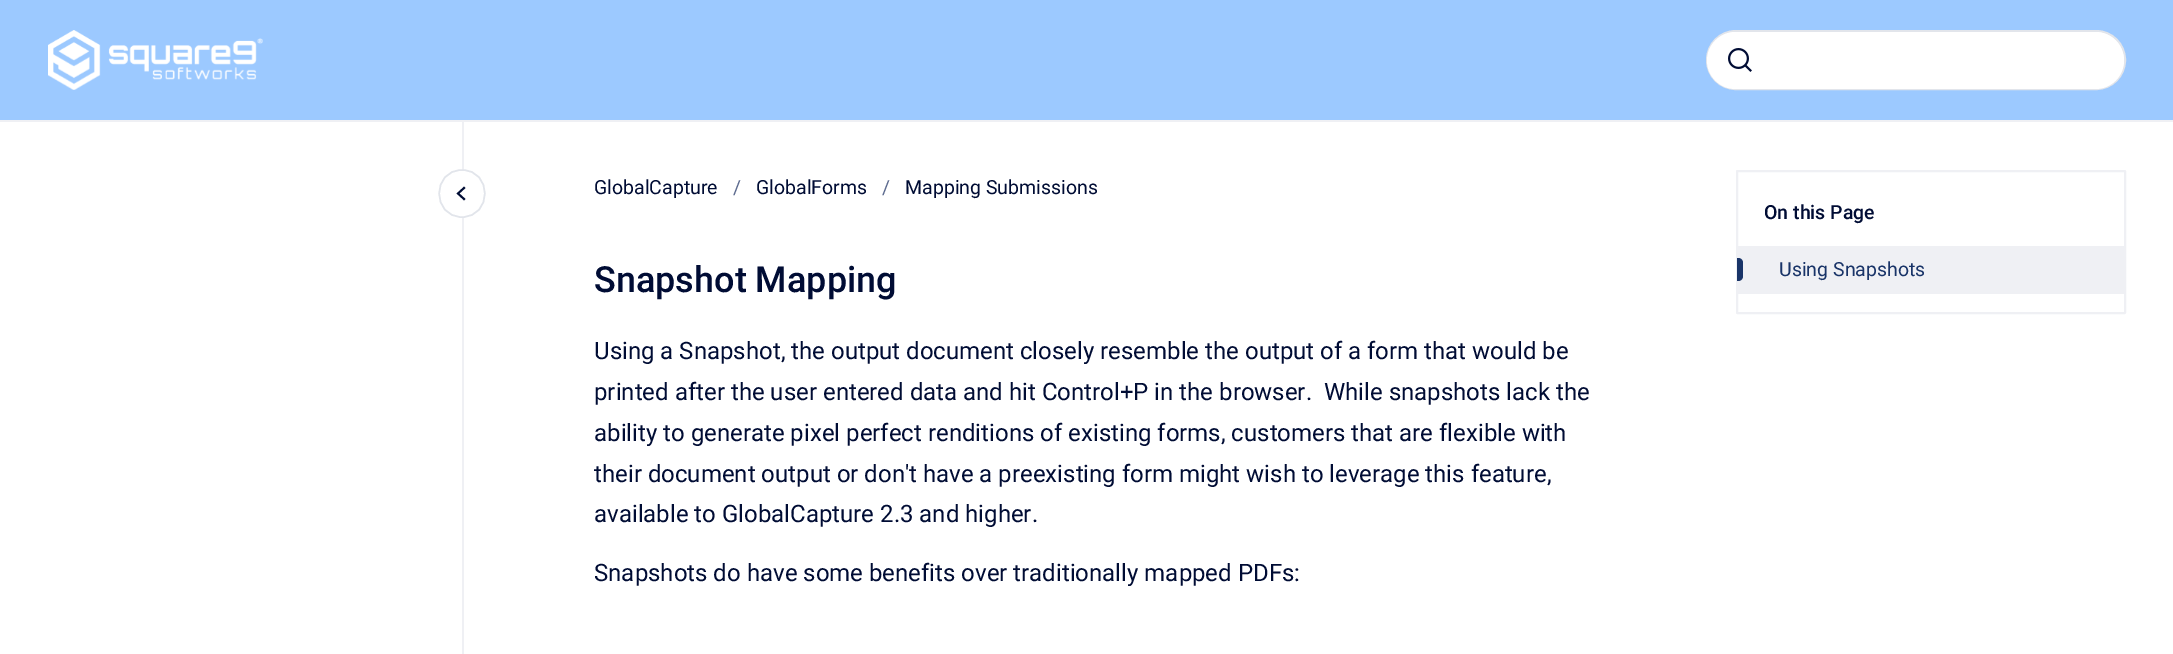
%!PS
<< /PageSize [2173 654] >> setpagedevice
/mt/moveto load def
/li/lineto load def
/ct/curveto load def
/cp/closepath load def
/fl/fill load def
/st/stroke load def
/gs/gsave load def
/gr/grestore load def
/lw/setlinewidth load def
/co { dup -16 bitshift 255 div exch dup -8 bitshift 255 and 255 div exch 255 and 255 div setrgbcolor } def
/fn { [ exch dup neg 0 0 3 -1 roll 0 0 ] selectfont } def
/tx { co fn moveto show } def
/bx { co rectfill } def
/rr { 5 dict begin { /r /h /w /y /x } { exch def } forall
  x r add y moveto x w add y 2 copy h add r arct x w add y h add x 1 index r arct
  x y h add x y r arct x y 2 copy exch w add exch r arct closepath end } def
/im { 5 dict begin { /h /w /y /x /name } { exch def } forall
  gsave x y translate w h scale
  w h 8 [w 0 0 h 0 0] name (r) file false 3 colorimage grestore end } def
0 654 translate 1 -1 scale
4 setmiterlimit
0 0 2173 654 16#FFFFFF bx
0 0 2173 120 16#9CC9FF bx
0 120 2173 2 16#EFF0F4 bx
(media/1.raw) 48 30 215 60 im
16#FFFFFF co
1707 31 418 58 29 rr gs fl gr
16#E2E5EB co
2 lw
st
16#FFFFFF co
1707 32 417 57 28.5 rr fl
(media/2.raw) 1728 48 24 24 im
462 122 2 532 16#EFF0F4 bx
16#FFFFFF co
462 218 mt 430 218 430 170 462 170 ct 494 170 494 218 462 218 ct cp fl
16#E2E5EB co
1.5 lw
462 217 mt 431.5 217 431.5 170 462 170 ct 492.5 170 492.5 217 462 217 ct cp st
16#000C34 co
1.9 lw
2 setlinecap
464 199 mt 458 193.5 li 464 188 li st
16#EFF0F4 co
2 lw
0 setlinecap
1737 171 388 142 .5 rr st
1738 246 386 48 16#EFF0F4 bx
16#193468 co
1737 258 mt 1738 258 li 1741 258 1743 260 1743 263 ct 1743 276 li 1743 279 1741 281 1738 281 ct 1737 281 li cp fl
(GlobalCapture) 594 194 /Roboto-Regular 19.5 16#000C34 tx
(/) 733 194 /Roboto-Regular 19.5 16#5D6B8F tx
(GlobalForms) 756 194 /Roboto-Regular 19.5 16#000C34 tx
(/) 882 194 /Roboto-Regular 19.5 16#5D6B8F tx
(Mapping Submissions) 905 194 /Roboto-Regular 19.5 16#000C34 tx
(On this Page) 1764 219 /Roboto-Medium 19.5 16#000C34 tx
(Using Snapshots) 1779 276 /Roboto-Regular 19.5 16#193468 tx
(Snapshot Mapping) 594 292 /Roboto-Medium 36 16#000C34 tx
(Using a Snapshot, the output document closely resemble the output of a form that would be) 594 359 /Roboto-Regular 24 16#000C34 tx
(printed after the user entered data and hit Control+P in the browser.  While snapshots lack the) 594 400 /Roboto-Regular 24 16#000C34 tx
(ability to generate pixel perfect renditions of existing forms, customers that are flexible with) 594 441 /Roboto-Regular 24 16#000C34 tx
(their document output or don't have a preexisting form might wish to leverage this feature,) 594 482 /Roboto-Regular 24 16#000C34 tx
(available to GlobalCapture 2.3 and higher.) 594 522 /Roboto-Regular 24 16#000C34 tx
(Snapshots do have some benefits over traditionally mapped PDFs:) 594 581 /Roboto-Regular 24 16#000C34 tx
showpage
